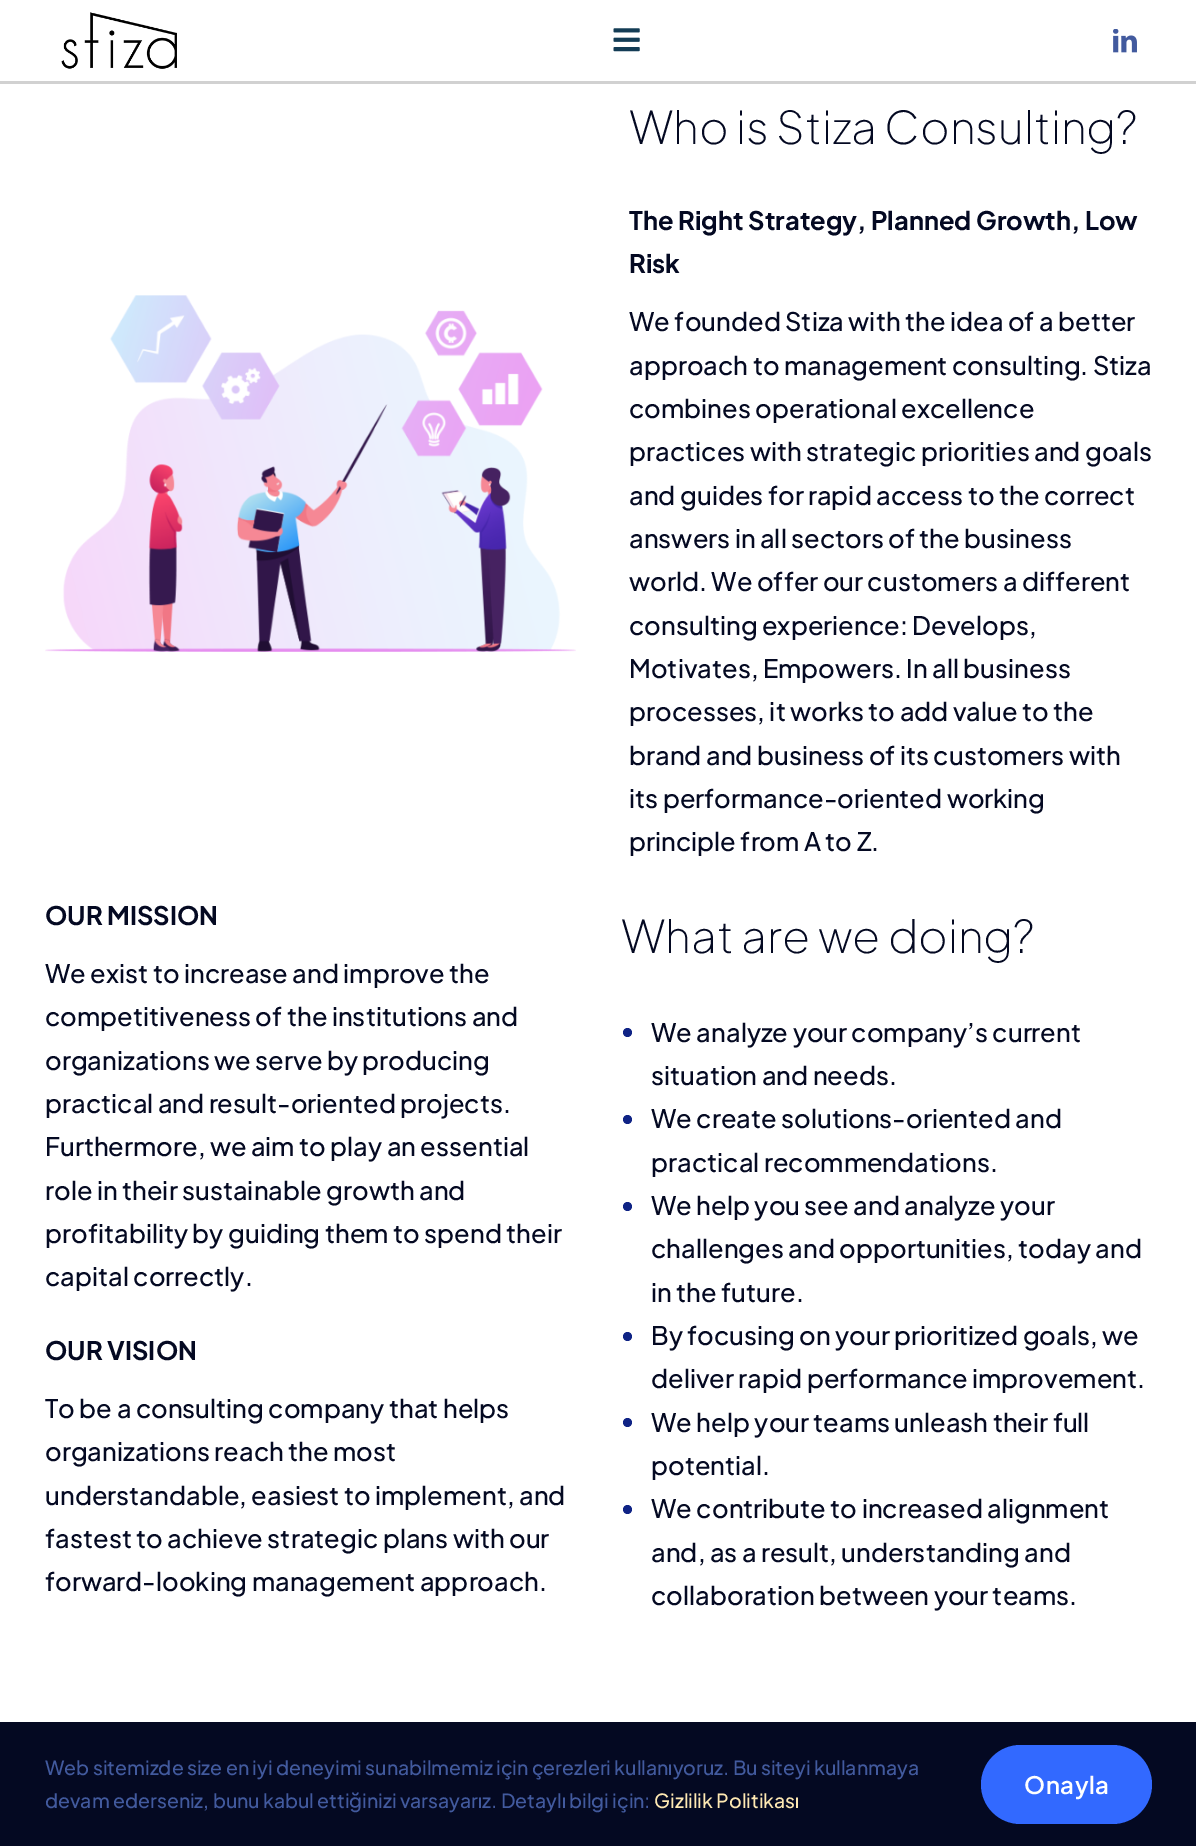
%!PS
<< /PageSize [1196 1846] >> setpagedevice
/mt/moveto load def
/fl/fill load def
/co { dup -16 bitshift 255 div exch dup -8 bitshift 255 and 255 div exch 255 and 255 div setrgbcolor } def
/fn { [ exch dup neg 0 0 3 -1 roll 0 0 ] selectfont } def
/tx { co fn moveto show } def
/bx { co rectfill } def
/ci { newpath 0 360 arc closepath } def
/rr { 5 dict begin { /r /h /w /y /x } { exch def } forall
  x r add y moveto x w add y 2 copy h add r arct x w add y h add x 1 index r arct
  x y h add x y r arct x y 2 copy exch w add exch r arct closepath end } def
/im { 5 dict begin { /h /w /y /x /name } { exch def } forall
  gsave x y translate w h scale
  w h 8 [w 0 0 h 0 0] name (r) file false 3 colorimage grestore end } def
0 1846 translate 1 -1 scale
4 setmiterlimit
0 0 1196 1846 16#FFFFFF bx
0 81 1196 3 16#D1D1D1 bx
(media/1.raw) 61 12 116 57 im
(media/2.raw) 613 28 27 24 im
(media/3.raw) 1113 29 24 24 im
(media/4.raw) 45 295 531 357 im
16#0F2385 co
627.5 1032.5 4.5 ci fl
627.5 1119.5 4.5 ci fl
627.5 1206.5 4.5 ci fl
627.5 1336.5 4.5 ci fl
627.5 1422.5 4.5 ci fl
627.5 1509.5 4.5 ci fl
0 1722 1196 124 16#040922 bx
16#3269FF co
981 1745 171 79 39.5 rr fl
(Who is Stiza Consulting?) 629 144 /PlusJakartaSans-ExtraLight 45 16#040922 tx
(The Right Strategy, Planned Growth, Low) 629 230 /PlusJakartaSans-Bold 25.5 16#040922 tx
(Risk) 629 273 /PlusJakartaSans-Bold 25.5 16#040922 tx
(We founded Stiza with the idea of a better) 629 331 /PlusJakartaSans-Medium 25.5 16#040922 tx
(approach to management consulting. Stiza) 629 375 /PlusJakartaSans-Medium 25.5 16#040922 tx
(combines operational excellence) 629 418 /PlusJakartaSans-Medium 25.5 16#040922 tx
(practices with strategic priorities and goals) 629 461 /PlusJakartaSans-Medium 25.5 16#040922 tx
(and guides for rapid access to the correct) 629 505 /PlusJakartaSans-Medium 25.5 16#040922 tx
(answers in all sectors of the business) 629 548 /PlusJakartaSans-Medium 25.5 16#040922 tx
(world. We offer our customers a different) 629 591 /PlusJakartaSans-Medium 25.5 16#040922 tx
(consulting experience: Develops,) 629 635 /PlusJakartaSans-Medium 25.5 16#040922 tx
(Motivates, Empowers. In all business) 629 678 /PlusJakartaSans-Medium 25.5 16#040922 tx
(processes, it works to add value to the) 629 721 /PlusJakartaSans-Medium 25.5 16#040922 tx
(brand and business of its customers with) 629 765 /PlusJakartaSans-Medium 25.5 16#040922 tx
(its performance-oriented working) 629 808 /PlusJakartaSans-Medium 25.5 16#040922 tx
(principle from A to Z.) 629 851 /PlusJakartaSans-Medium 25.5 16#040922 tx
(OUR MISSION) 45 925 /PlusJakartaSans-Bold 25.5 16#040922 tx
(We exist to increase and improve the) 45 983 /PlusJakartaSans-Medium 25.5 16#040922 tx
(competitiveness of the institutions and) 45 1026 /PlusJakartaSans-Medium 25.5 16#040922 tx
(organizations we serve by producing) 45 1070 /PlusJakartaSans-Medium 25.5 16#040922 tx
(practical and result-oriented projects.) 45 1113 /PlusJakartaSans-Medium 25.5 16#040922 tx
(Furthermore, we aim to play an essential) 45 1156 /PlusJakartaSans-Medium 25.5 16#040922 tx
(role in their sustainable growth and) 45 1200 /PlusJakartaSans-Medium 25.5 16#040922 tx
(profitability by guiding them to spend their) 45 1243 /PlusJakartaSans-Medium 25.5 16#040922 tx
(capital correctly.) 45 1286 /PlusJakartaSans-Medium 25.5 16#040922 tx
(OUR VISION) 45 1360 /PlusJakartaSans-Bold 25.5 16#040922 tx
(To be a consulting company that helps) 45 1418 /PlusJakartaSans-Medium 25.5 16#040922 tx
(organizations reach the most) 45 1461 /PlusJakartaSans-Medium 25.5 16#040922 tx
(understandable, easiest to implement, and) 45 1505 /PlusJakartaSans-Medium 25.5 16#040922 tx
(fastest to achieve strategic plans with our) 45 1548 /PlusJakartaSans-Medium 25.5 16#040922 tx
(forward-looking management approach.) 45 1591 /PlusJakartaSans-Medium 25.5 16#040922 tx
(What are we doing?) 621 953 /PlusJakartaSans-ExtraLight 45 16#040922 tx
(We analyze your company’s current) 651 1042 /PlusJakartaSans-Medium 25.5 16#040922 tx
(situation and needs.) 651 1085 /PlusJakartaSans-Medium 25.5 16#040922 tx
(We create solutions-oriented and) 651 1128 /PlusJakartaSans-Medium 25.5 16#040922 tx
(practical recommendations.) 651 1172 /PlusJakartaSans-Medium 25.5 16#040922 tx
(We help you see and analyze your) 651 1215 /PlusJakartaSans-Medium 25.5 16#040922 tx
(challenges and opportunities, today and) 651 1258 /PlusJakartaSans-Medium 25.5 16#040922 tx
(in the future.) 651 1302 /PlusJakartaSans-Medium 25.5 16#040922 tx
(By focusing on your prioritized goals, we) 651 1345 /PlusJakartaSans-Medium 25.5 16#040922 tx
(deliver rapid performance improvement.) 651 1388 /PlusJakartaSans-Medium 25.5 16#040922 tx
(We help your teams unleash their full) 651 1432 /PlusJakartaSans-Medium 25.5 16#040922 tx
(potential.) 651 1475 /PlusJakartaSans-Medium 25.5 16#040922 tx
(We contribute to increased alignment) 651 1518 /PlusJakartaSans-Medium 25.5 16#040922 tx
(and, as a result, understanding and) 651 1562 /PlusJakartaSans-Medium 25.5 16#040922 tx
(collaboration between your teams.) 651 1605 /PlusJakartaSans-Medium 25.5 16#040922 tx
(Web sitemizde size en iyi deneyimi sunabilmemiz için çerezleri kullanıyoruz. Bu siteyi kullanmaya) 45 1775 /PlusJakartaSans-Medium 19.5 16#425A9E tx
(devam ederseniz, bunu kabul ettiğinizi varsayarız. Detaylı bilgi için:) 45 1808 /PlusJakartaSans-Medium 19.5 16#425A9E tx
(Gizlilik Politikası) 654 1808 /PlusJakartaSans-Medium 19.5 16#FFE9B3 tx
/PlusJakartaSans-SemiBold 24 fn
16#FFFFFF co
1024 1794 mt .5 0 (Onayla) ashow
showpage
